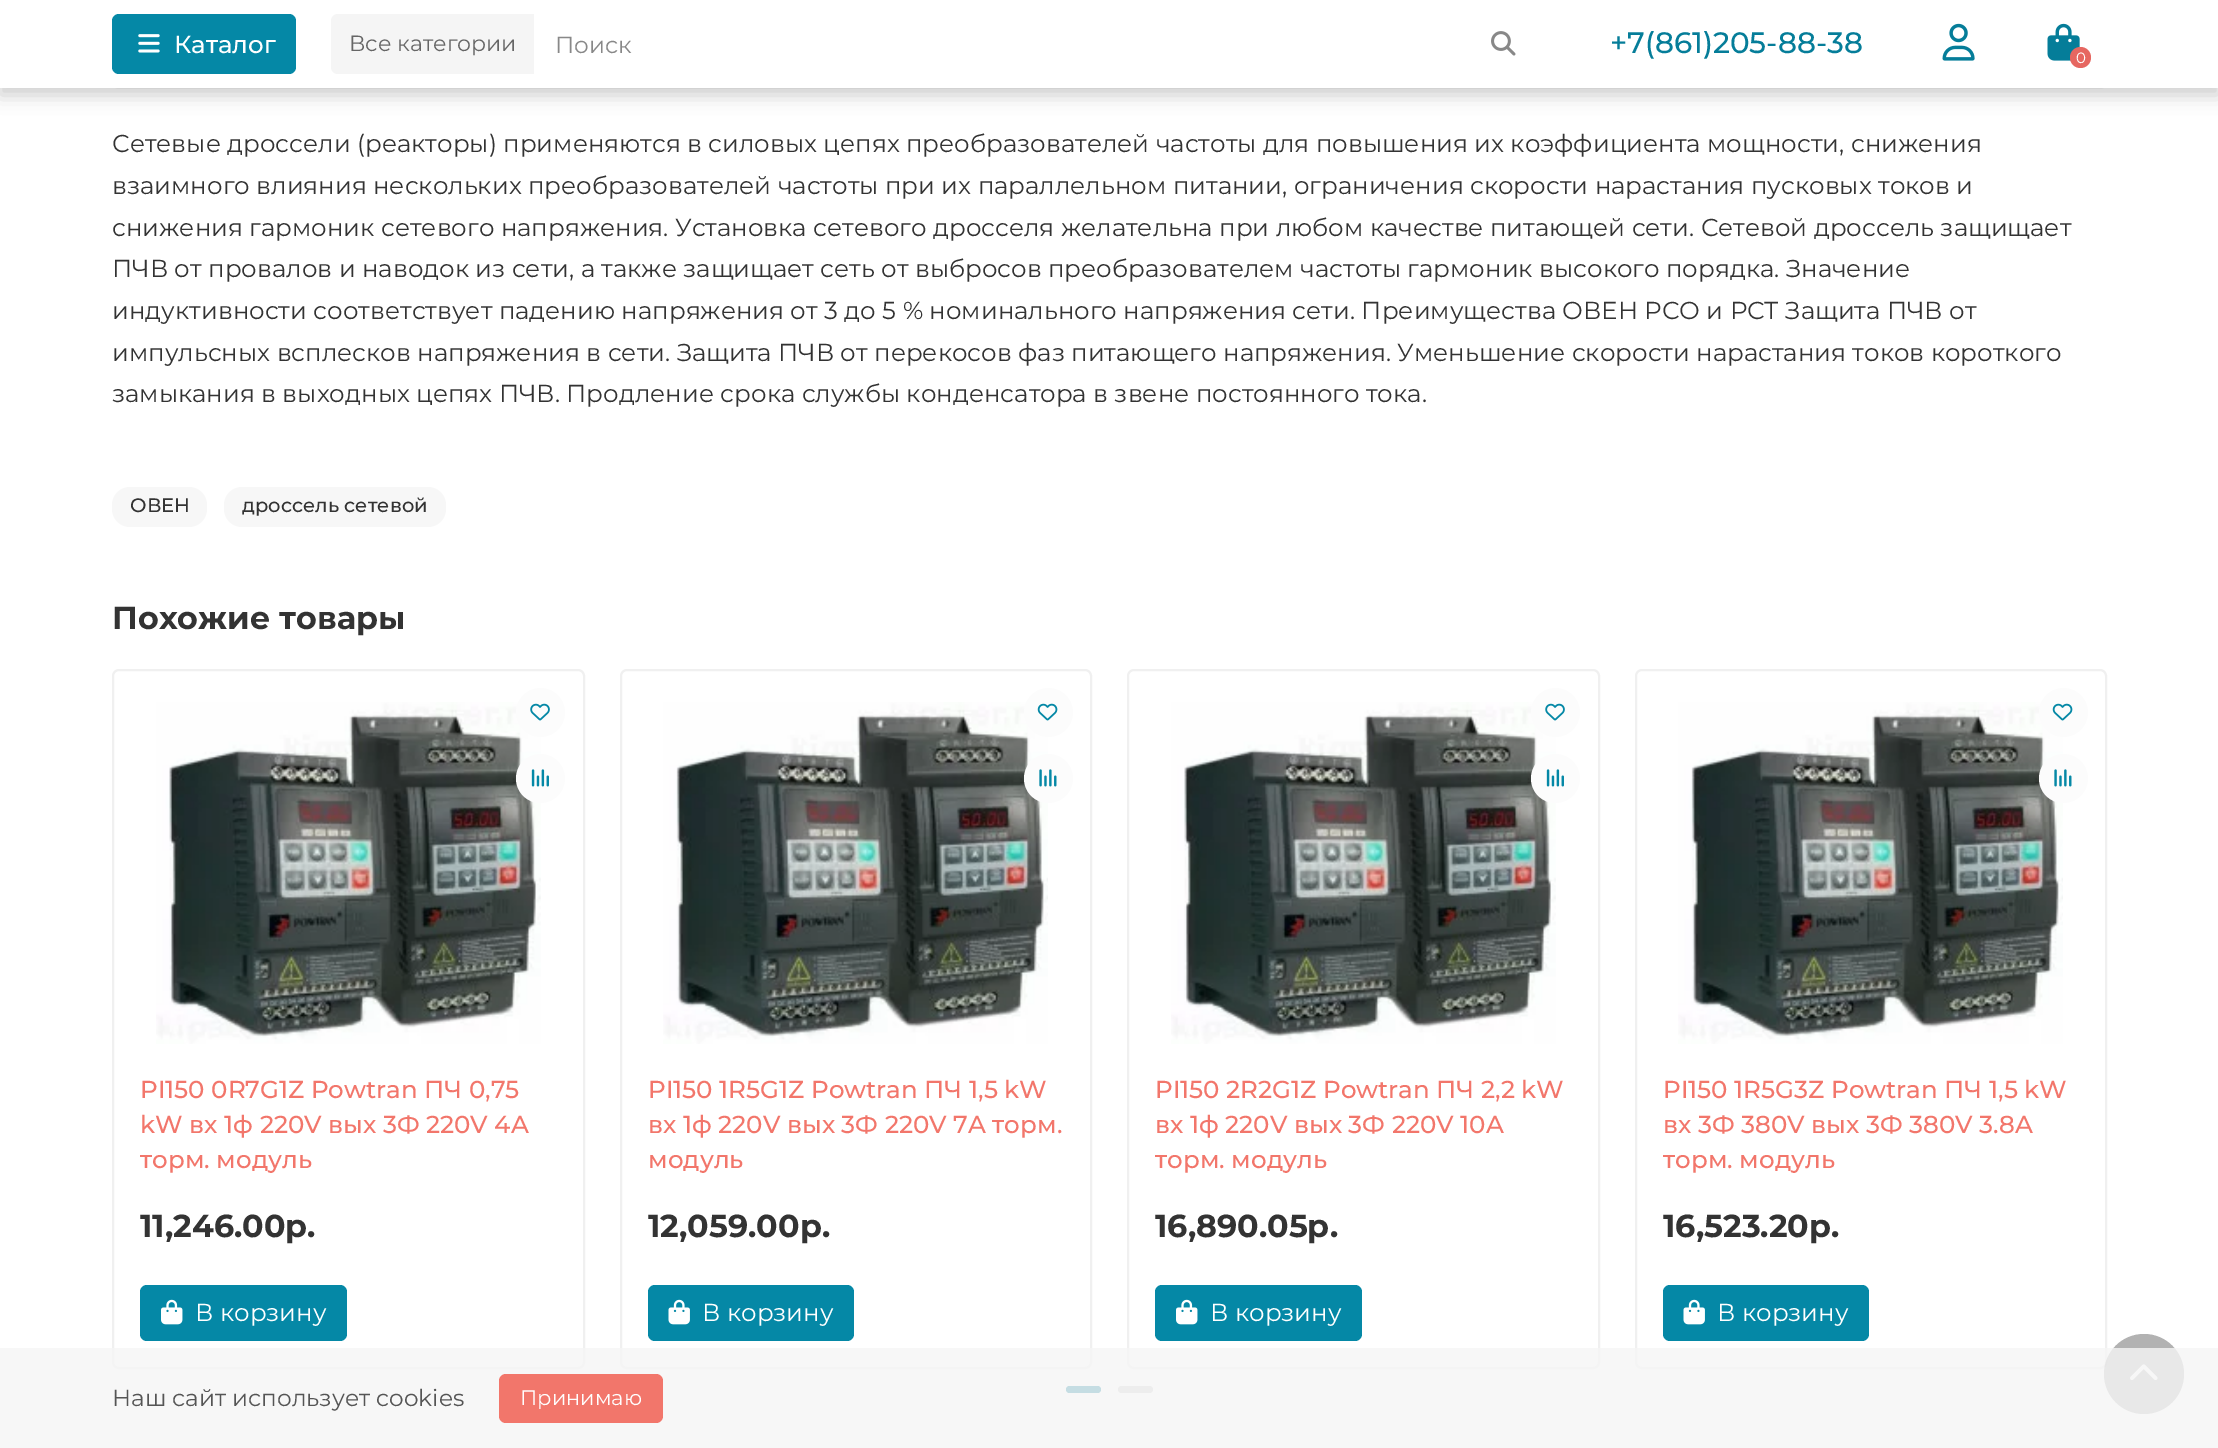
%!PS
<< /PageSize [2218 1448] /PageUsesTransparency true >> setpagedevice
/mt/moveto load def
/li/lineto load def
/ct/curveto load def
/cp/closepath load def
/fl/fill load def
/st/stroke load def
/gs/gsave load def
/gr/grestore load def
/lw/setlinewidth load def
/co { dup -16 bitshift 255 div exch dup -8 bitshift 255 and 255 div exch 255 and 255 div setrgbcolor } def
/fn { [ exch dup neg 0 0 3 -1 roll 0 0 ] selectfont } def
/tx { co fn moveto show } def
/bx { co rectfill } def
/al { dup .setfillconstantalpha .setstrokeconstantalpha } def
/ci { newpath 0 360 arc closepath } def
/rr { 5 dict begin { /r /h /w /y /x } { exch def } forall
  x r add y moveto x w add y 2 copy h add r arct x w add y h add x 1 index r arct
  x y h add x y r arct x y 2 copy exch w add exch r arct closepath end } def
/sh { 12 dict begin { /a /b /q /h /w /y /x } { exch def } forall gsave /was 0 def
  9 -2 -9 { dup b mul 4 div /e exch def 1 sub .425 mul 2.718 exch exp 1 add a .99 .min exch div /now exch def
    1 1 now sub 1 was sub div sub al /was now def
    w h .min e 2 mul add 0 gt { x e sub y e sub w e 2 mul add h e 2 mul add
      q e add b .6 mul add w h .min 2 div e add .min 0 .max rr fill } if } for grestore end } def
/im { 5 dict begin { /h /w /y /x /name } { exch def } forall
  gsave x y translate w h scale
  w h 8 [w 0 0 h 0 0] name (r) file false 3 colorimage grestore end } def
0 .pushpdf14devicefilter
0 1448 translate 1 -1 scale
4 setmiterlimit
0 0 2218 1448 16#FFFFFF bx
16#F7F7F7 co
112 9 1995 80 7 rr fl
16#000000 co
0 7 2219 88 0 9 .2 sh
0 0 2218 88 16#FFFFFF bx
16#0588A6 co
112 14 184 60 7 rr fl
(media/1.raw) 138 34 22 19 im
16#F5F5F5 co
338 14 mt 534 14 li 534 74 li 338 74 li 334 74 331 71 331 67 ct 331 21 li 331 17 334 14 338 14 ct cp fl
(media/2.raw) 1491 31 25 25 im
(media/3.raw) 1942 23 33 38 im
(media/4.raw) 2047 23 33 38 im
16#E66761 co
2080.5 57.5 10.5 ci fl
16#F7F7F7 co
112 487 95 40 18 rr fl
224 487 222 40 18 rr fl
16#F0F0F0 co
2 lw
113 670 471 698 6 rr st
(media/5.raw) 156 702 385 342 im
16#FCFCFC co
540.5 712.5 24.5 ci fl
(media/6.raw) 530 703 20 18 im
540.5 778.5 24.5 ci fl
(media/7.raw) 531 769 18 18 im
16#0588A6 co
140 1285 207 56 7 rr fl
(media/8.raw) 161 1299 22 26 im
16#F0F0F0 co
621 670 470 698 6 rr st
(media/9.raw) 663 702 385 342 im
16#FCFCFC co
1048.5 712.5 24.5 ci fl
(media/10.raw) 1037 703 21 18 im
1048.5 778.5 24.5 ci fl
(media/11.raw) 1039 769 18 18 im
16#0588A6 co
648 1285 206 56 7 rr fl
(media/12.raw) 668 1299 22 26 im
16#F0F0F0 co
1128 670 471 698 6 rr st
(media/13.raw) 1171 702 385 342 im
16#FCFCFC co
1555.5 712.5 24.5 ci fl
(media/6.raw) 1545 703 20 18 im
1555.5 778.5 24.5 ci fl
(media/7.raw) 1546 769 18 18 im
16#0588A6 co
1155 1285 207 56 7 rr fl
(media/8.raw) 1176 1299 22 26 im
16#F0F0F0 co
1636 670 470 698 6 rr st
(media/14.raw) 1678 702 385 342 im
16#FCFCFC co
2063.5 712.5 24.5 ci fl
(media/10.raw) 2052 703 21 18 im
2063.5 778.5 24.5 ci fl
(media/11.raw) 2054 769 18 18 im
16#0588A6 co
1663 1285 206 56 7 rr fl
(media/12.raw) 1683 1299 22 26 im
16#057D99 co
1066 1386 35 7 3.5 rr fl
16#CCCCCC co
1118 1386 35 7 3.5 rr fl
0.3 al
16#000000 co
2144 1374 40 ci fl
1 al
(media/15.raw) 2130 1364 28 16 im
0.8 al
0 1348 2218 100 16#F5F5F5 bx
1 al
16#F2766B co
499 1374 164 49 7 rr fl
(Каталог) 174 53 /Montserrat-Medium 24.5 16#FFFFFF tx
(Все категории) 349 51 /Montserrat-Regular 22 16#666666 tx
(Поиск) 555 53 /Montserrat-Regular 23.25 16#888888 tx
(+7\(861\)205-88-38) 1610 53 /Montserrat-Medium 29.5 16#057D99 tx
(0) 2076 63 /Montserrat-Regular 15 16#FFFFFF tx
(Сетевые дроссели \(реакторы\) применяются в силовых цепях преобразователей частоты для повышения их коэффициента мощности, снижения) 112 152 /Montserrat-Regular 24.5 16#333333 tx
(взаимного влияния нескольких преобразователей частоты при их параллельном питании, ограничения скорости нарастания пусковых токов и) 112 194 /Montserrat-Regular 24.5 16#333333 tx
(снижения гармоник сетевого напряжения. Установка сетевого дросселя желательна при любом качестве питающей сети. Сетевой дроссель защищает) 112 236 /Montserrat-Regular 24.5 16#333333 tx
(ПЧВ от провалов и наводок из сети, а также защищает сеть от выбросов преобразователем частоты гармоник высокого порядка. Значение) 112 277 /Montserrat-Regular 24.5 16#333333 tx
(индуктивности соответствует падению напряжения от 3 до 5 % номинального напряжения сети. Преимущества ОВЕН РСО и РСТ Защита ПЧВ от) 112 319 /Montserrat-Regular 24.5 16#333333 tx
(импульсных всплесков напряжения в сети. Защита ПЧВ от перекосов фаз питающего напряжения. Уменьшение скорости нарастания токов короткого) 112 361 /Montserrat-Regular 24.5 16#333333 tx
(замыкания в выходных цепях ПЧВ. Продление срока службы конденсатора в звене постоянного тока.) 112 402 /Montserrat-Regular 24.5 16#333333 tx
(ОВЕН) 130 512 /Montserrat-Medium 19.5 16#333333 tx
(дроссель сетевой) 242 512 /Montserrat-Medium 19.5 16#333333 tx
(Похожие товары) 112 629 /Montserrat-Bold 31.75 16#333333 tx
(PI150 0R7G1Z Powtran ПЧ 0,75) 140 1098 /Montserrat-Medium 24.5 16#F2766B tx
(kW вх 1ф 220V вых 3Ф 220V 4A) 140 1133 /Montserrat-Medium 24.5 16#F2766B tx
(торм. модуль) 140 1168 /Montserrat-Medium 24.5 16#F2766B tx
(11,246.00р.) 140 1237 /Montserrat-Bold 31.75 16#333333 tx
(В корзину) 195 1321 /Montserrat-Regular 24.5 16#FFFFFF tx
(PI150 1R5G1Z Powtran ПЧ 1,5 kW) 648 1098 /Montserrat-Medium 24.5 16#F2766B tx
(вх 1ф 220V вых 3Ф 220V 7A торм.) 648 1133 /Montserrat-Medium 24.5 16#F2766B tx
(модуль) 648 1168 /Montserrat-Medium 24.5 16#F2766B tx
gs
648 1073 416 268 rectclip
(12,059.00р.) 648 1237 /Montserrat-Bold 31.75 16#333333 tx
gr
(В корзину) 702 1321 /Montserrat-Regular 24.5 16#FFFFFF tx
(PI150 2R2G1Z Powtran ПЧ 2,2 kW) 1155 1098 /Montserrat-Medium 24.5 16#F2766B tx
(вх 1ф 220V вых 3Ф 220V 10A) 1155 1133 /Montserrat-Medium 24.5 16#F2766B tx
(торм. модуль) 1155 1168 /Montserrat-Medium 24.5 16#F2766B tx
(16,890.05р.) 1155 1237 /Montserrat-Bold 31.75 16#333333 tx
(В корзину) 1210 1321 /Montserrat-Regular 24.5 16#FFFFFF tx
(PI150 1R5G3Z Powtran ПЧ 1,5 kW) 1663 1098 /Montserrat-Medium 24.5 16#F2766B tx
(вх 3Ф 380V вых 3Ф 380V 3.8A) 1663 1133 /Montserrat-Medium 24.5 16#F2766B tx
(торм. модуль) 1663 1168 /Montserrat-Medium 24.5 16#F2766B tx
gs
1663 1073 416 268 rectclip
(16,523.20р.) 1663 1237 /Montserrat-Bold 31.75 16#333333 tx
gr
(В корзину) 1717 1321 /Montserrat-Regular 24.5 16#FFFFFF tx
(Наш сайт использует cookies) 112 1406 /Montserrat-Regular 23.25 16#555555 tx
(Принимаю) 520 1405 /Montserrat-Regular 21 16#FFFFFF tx
.poppdf14devicefilter showpage
